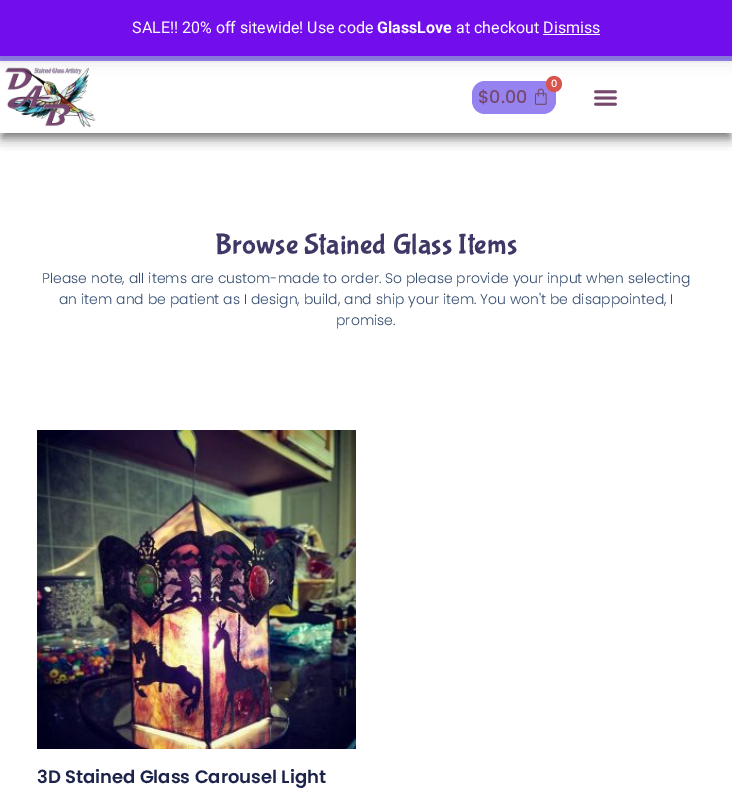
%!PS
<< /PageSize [732 792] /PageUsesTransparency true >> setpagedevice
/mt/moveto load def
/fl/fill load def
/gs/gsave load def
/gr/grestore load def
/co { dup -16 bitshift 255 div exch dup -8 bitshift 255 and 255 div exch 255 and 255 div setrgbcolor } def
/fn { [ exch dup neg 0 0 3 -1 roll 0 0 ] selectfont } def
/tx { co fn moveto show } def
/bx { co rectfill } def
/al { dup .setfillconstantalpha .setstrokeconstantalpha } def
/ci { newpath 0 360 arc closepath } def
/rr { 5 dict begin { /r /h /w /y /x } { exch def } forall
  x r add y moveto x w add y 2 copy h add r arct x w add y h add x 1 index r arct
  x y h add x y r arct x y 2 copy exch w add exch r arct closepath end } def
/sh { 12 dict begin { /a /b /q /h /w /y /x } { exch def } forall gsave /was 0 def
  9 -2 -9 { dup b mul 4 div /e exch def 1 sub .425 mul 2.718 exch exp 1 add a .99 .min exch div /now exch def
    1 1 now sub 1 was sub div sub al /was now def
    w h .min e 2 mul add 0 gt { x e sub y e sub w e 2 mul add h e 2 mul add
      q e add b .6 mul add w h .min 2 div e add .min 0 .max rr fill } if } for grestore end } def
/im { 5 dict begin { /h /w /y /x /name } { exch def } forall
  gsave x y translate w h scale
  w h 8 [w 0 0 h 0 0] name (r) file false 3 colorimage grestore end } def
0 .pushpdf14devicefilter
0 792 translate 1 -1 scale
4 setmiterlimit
0 0 732 792 16#FFFFFF bx
gs
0 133 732 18 rectclip
16#000000 co
0 5 732 133 0 15 .1 sh
gr
0 56 732 5 16#9683F0 bx
gs
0 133 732 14 rectclip
16#000000 co
2 70 728 68 0 5 .5 sh
gr
(media/1.raw) 4 67 92 61 im
472 81 84 33 13 rr fl
(media/2.raw) 534 88 13 17 im
16#D9534F co
554 84 8 ci fl
16#000000 co
0 1 732 56 0 8 .2 sh
0 0 732 56 16#720EEC bx
543 34 57 1 16#FCFBFE bx
(media/3.raw) 594 90 23 16 im
(media/4.raw) 37 430 319 319 im
(SALE!! 20% off sitewide! Use code) 132 33 /Roboto-Regular 16 16#FFFFFF tx
(GlassLove) 377 33 /Roboto-Bold 16 16#FFFFFF tx
(at checkout Dismiss) 456 33 /Roboto-Regular 16 16#FFFFFF tx
(0) 551 87 /Poppins-Medium 10 16#FFFFFF tx
($0.00) 478 103 /Poppins-Medium 17.5 16#76486D tx
/BubblegumSans-Regular 29 fn
16#3F3765 co
215 253 mt .2 0 (Browse Stained Glass Items) ashow
(Please note, all items are custom-made to order. So please provide your input when selecting) 42 283 /Poppins-Light 14 16#324A6D tx
(an item and be patient as I design, build, and ship your item. You won't be disappointed, I) 59 304 /Poppins-Light 14 16#324A6D tx
(promise.) 336 325 /Poppins-Light 14 16#324A6D tx
(3D Stained Glass Carousel Light) 37 783 /Poppins-SemiBold 18 16#1C244B tx
.poppdf14devicefilter showpage
